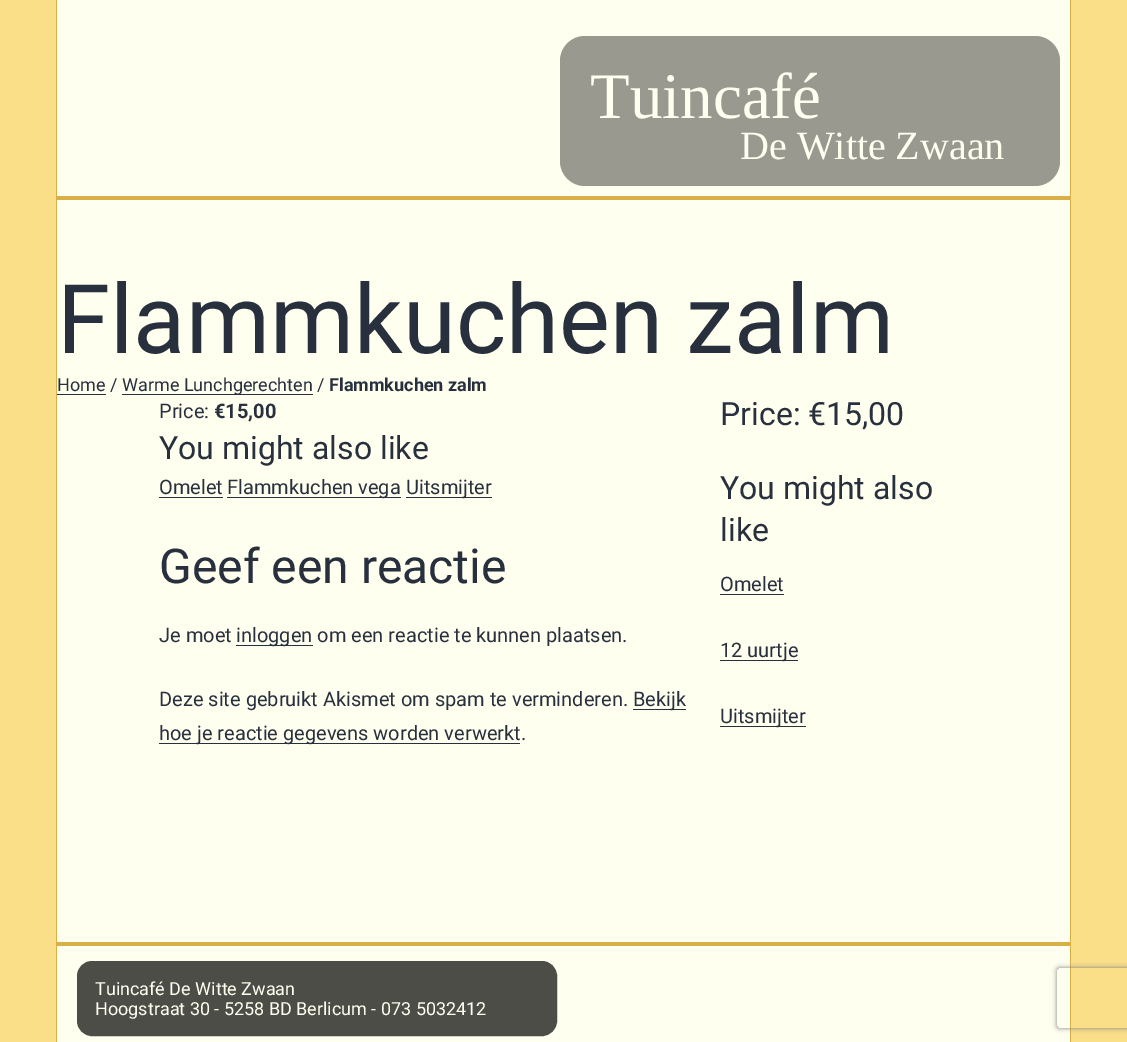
%!PS
<< /PageSize [1127 1042] /PageUsesTransparency true >> setpagedevice
/mt/moveto load def
/li/lineto load def
/ct/curveto load def
/cp/closepath load def
/fl/fill load def
/st/stroke load def
/gs/gsave load def
/gr/grestore load def
/lw/setlinewidth load def
/co { dup -16 bitshift 255 div exch dup -8 bitshift 255 and 255 div exch 255 and 255 div setrgbcolor } def
/fn { [ exch dup neg 0 0 3 -1 roll 0 0 ] selectfont } def
/tx { co fn moveto show } def
/bx { co rectfill } def
/al { dup .setfillconstantalpha .setstrokeconstantalpha } def
/rr { 5 dict begin { /r /h /w /y /x } { exch def } forall
  x r add y moveto x w add y 2 copy h add r arct x w add y h add x 1 index r arct
  x y h add x y r arct x y 2 copy exch w add exch r arct closepath end } def
/sh { 12 dict begin { /a /b /q /h /w /y /x } { exch def } forall gsave /was 0 def
  9 -2 -9 { dup b mul 4 div /e exch def 1 sub .425 mul 2.718 exch exp 1 add a .99 .min exch div /now exch def
    1 1 now sub 1 was sub div sub al /was now def
    w h .min e 2 mul add 0 gt { x e sub y e sub w e 2 mul add h e 2 mul add
      q e add b .6 mul add w h .min 2 div e add .min 0 .max rr fill } if } for grestore end } def
0 .pushpdf14devicefilter
0 1042 translate 1 -1 scale
4 setmiterlimit
0 0 1127 1042 16#FADF88 bx
57 0 1013 1042 16#FFFFF0 bx
1070 0 1 1042 16#DAAF48 bx
56 0 1 1042 16#DAAF48 bx
57 196 1013 4 16#DAAF48 bx
16#999990 co
560 36 500 150 25 rr fl
57 394 49 1 16#28303D bx
122 394 191 1 16#28303D bx
159 497 64 1 16#28303D bx
227 497 174 1 16#28303D bx
406 497 86 1 16#28303D bx
236 645 77 1 16#28303D bx
633 709 53 1 16#28303D bx
159 743 361 1 16#28303D bx
720 594 64 1 16#28303D bx
720 660 78 1 16#28303D bx
720 726 86 1 16#28303D bx
57 942 1013 4 16#DAAF48 bx
16#4D4D48 co
78 962 478 73 14 rr gs fl gr
2 lw
st
gs
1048 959 mt 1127 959 li 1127 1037 li 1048 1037 li cp 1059 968 mt 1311 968 li 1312 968 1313 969 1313 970 ct 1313 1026 li 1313 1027 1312 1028 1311 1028 ct 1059 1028 li 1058 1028 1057 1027 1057 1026 ct 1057 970 li 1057 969 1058 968 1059 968 ct cp eoclip newpath
16#808080 co
1057 968 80 60 2 2.5 1 sh
gr
(Tuincafé) 590 118 /LiberationSerif-Regular 65 16#FFFFF0 tx
(De Witte Zwaan) 740 159 /LiberationSerif-Regular 40 16#FFFFF0 tx
(Flammkuchen zalm) 57 353 /Roboto-Regular 96 16#28303D tx
(Home /) 57 391 /Roboto-Regular 18 16#28303D tx
(Warme Lunchgerechten /) 122 391 /Roboto-Regular 18 16#28303D tx
(Flammkuchen zalm) 329 391 /Roboto-Bold 18 16#28303D tx
(Price:) 159 418 /Roboto-Regular 20 16#28303D tx
(€15,00) 214 418 /Roboto-Bold 20 16#28303D tx
(You might also like) 159 459 /Roboto-Regular 32 16#28303D tx
(Omelet) 159 494 /Roboto-Regular 20 16#28303D tx
(Flammkuchen vega) 227 494 /Roboto-Regular 20 16#28303D tx
(Uitsmijter) 406 494 /Roboto-Regular 20 16#28303D tx
(Geef een reactie) 159 583 /Roboto-Regular 48 16#28303D tx
(Je moet) 159 642 /Roboto-Regular 20 16#28303D tx
(inloggen om een reactie te kunnen plaatsen.) 236 642 /Roboto-Regular 20 16#28303D tx
(Deze site gebruikt Akismet om spam te verminderen.) 159 706 /Roboto-Regular 20 16#28303D tx
(Bekijk) 633 706 /Roboto-Regular 20 16#28303D tx
(hoe je reactie gegevens worden verwerkt.) 159 740 /Roboto-Regular 20 16#28303D tx
(Price: €15,00) 720 425 /Roboto-Regular 32 16#28303D tx
(You might also) 720 499 /Roboto-Regular 32 16#28303D tx
(like) 720 541 /Roboto-Regular 32 16#28303D tx
(Omelet) 720 591 /Roboto-Regular 20 16#28303D tx
(12 uurtje) 720 657 /Roboto-Regular 20 16#28303D tx
(Uitsmijter) 720 723 /Roboto-Regular 20 16#28303D tx
(Tuincafé De Witte Zwaan) 95 995 /Roboto-Regular 18 16#FFFFF0 tx
(Hoogstraat 30 - 5258 BD Berlicum - 073 5032412) 95 1015 /Roboto-Regular 18 16#FFFFF0 tx
.poppdf14devicefilter showpage
